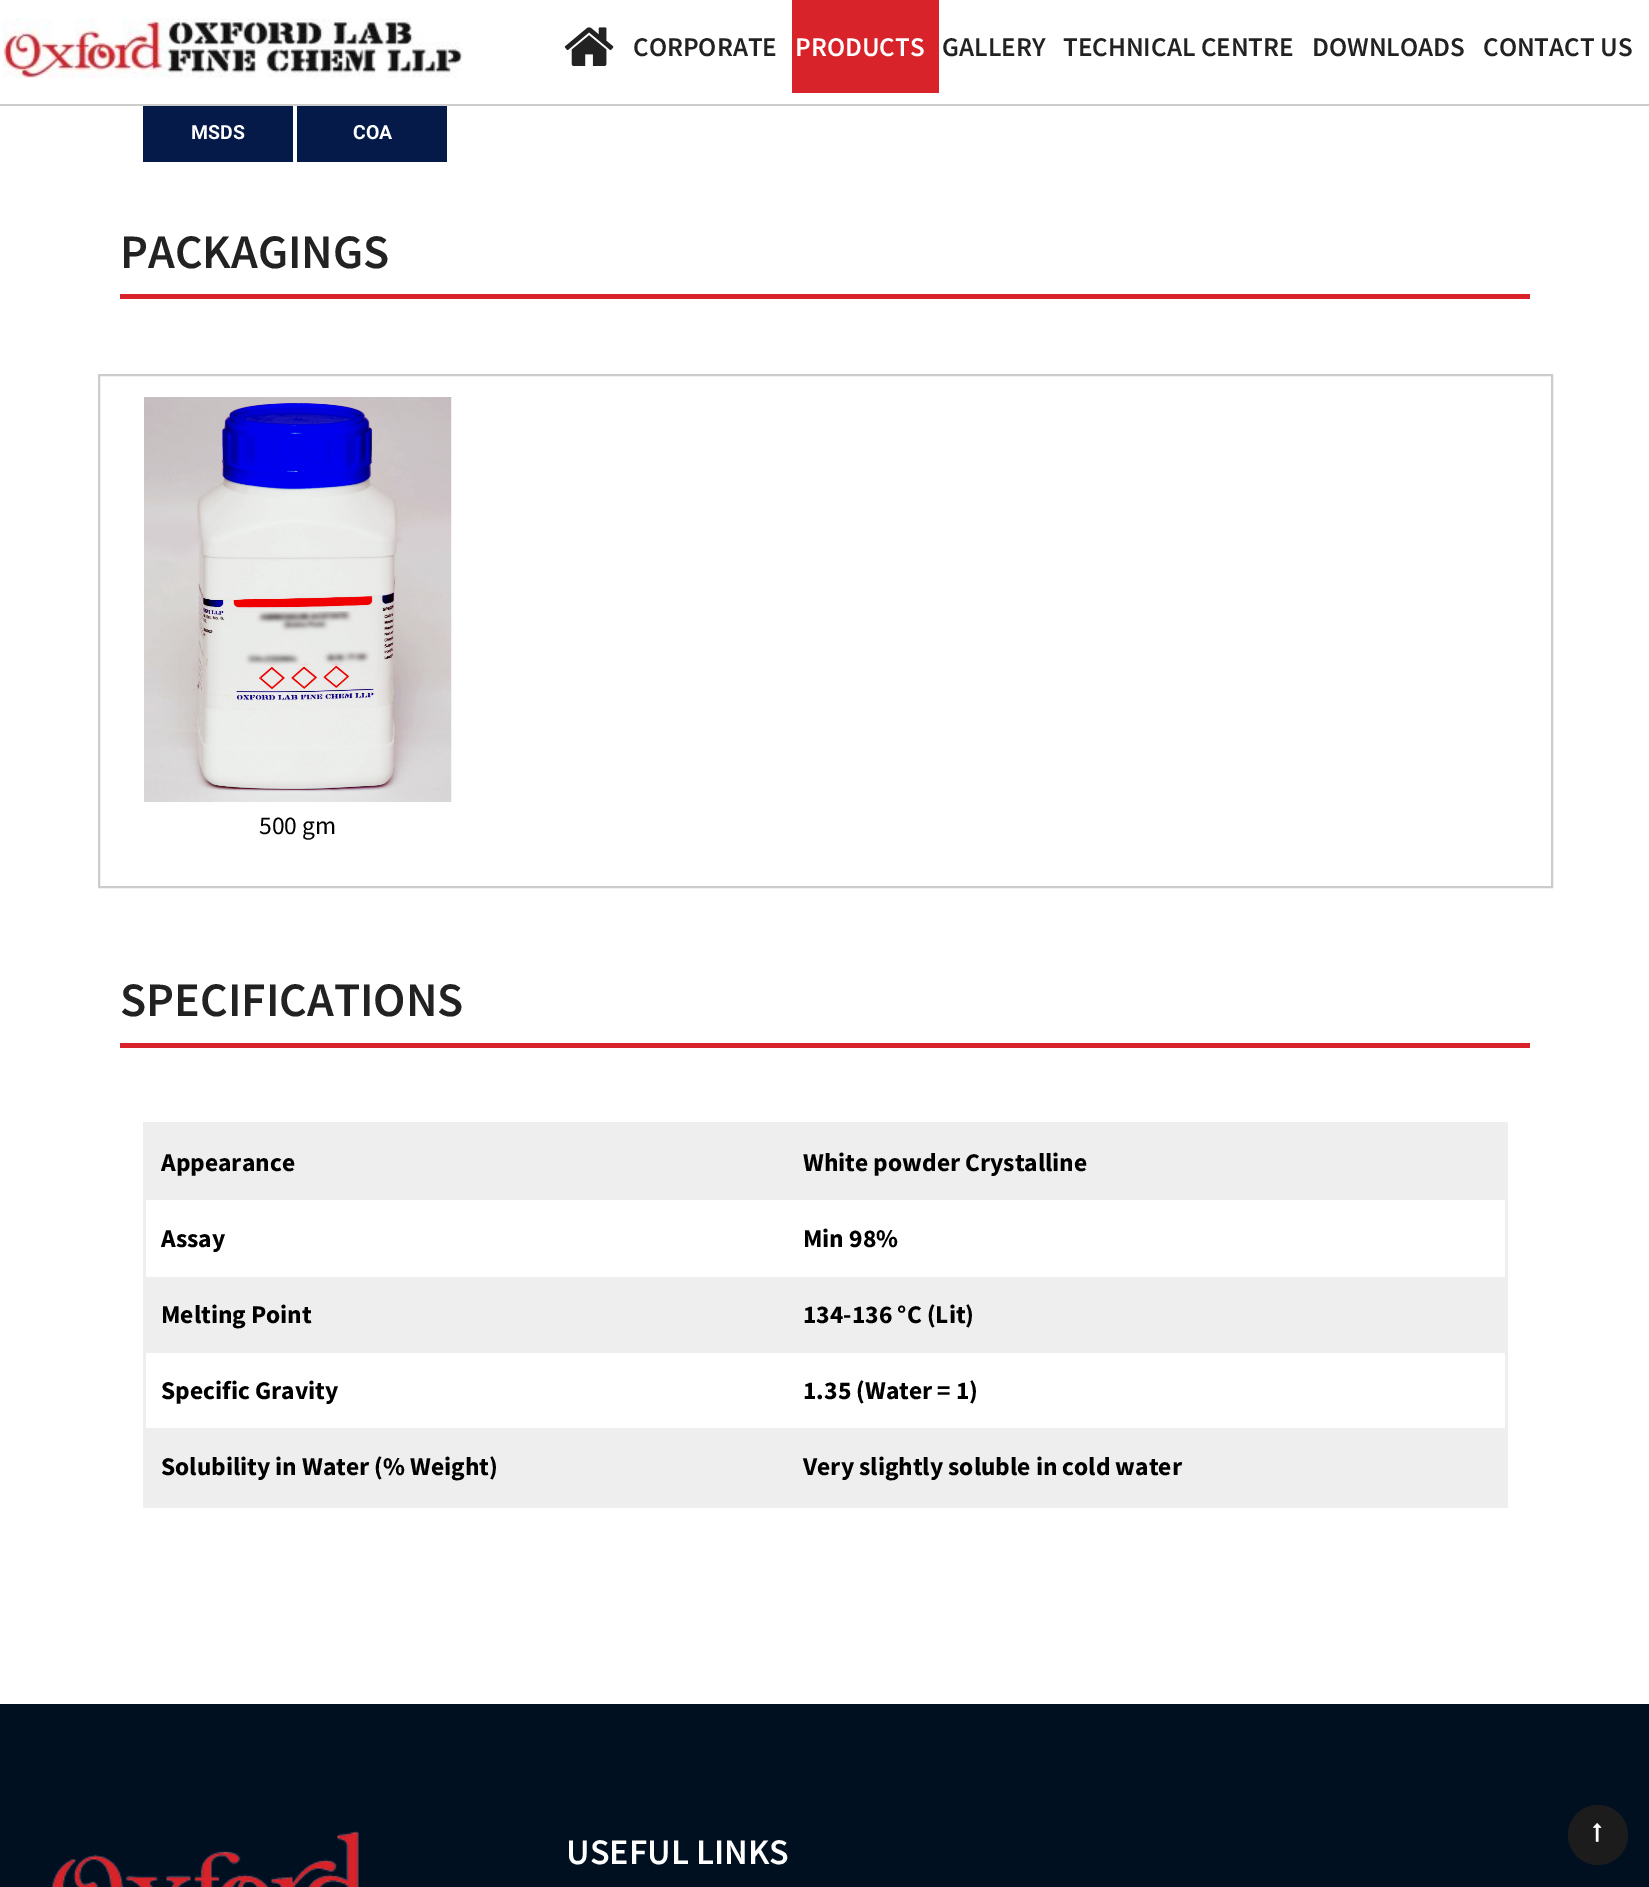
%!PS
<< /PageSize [1649 1887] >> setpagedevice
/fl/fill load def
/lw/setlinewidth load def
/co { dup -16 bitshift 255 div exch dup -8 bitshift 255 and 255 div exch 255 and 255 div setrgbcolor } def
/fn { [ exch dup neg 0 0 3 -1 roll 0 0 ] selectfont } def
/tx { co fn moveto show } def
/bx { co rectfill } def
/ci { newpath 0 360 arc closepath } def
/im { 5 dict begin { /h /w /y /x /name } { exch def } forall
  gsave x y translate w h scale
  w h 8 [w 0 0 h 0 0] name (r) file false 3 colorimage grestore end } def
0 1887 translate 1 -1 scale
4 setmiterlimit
0 0 1649 1887 16#FFFFFF bx
0 104 1649 2 16#CCCCCC bx
(media/1.raw) 3 18 460 60 im
(media/2.raw) 564 27 50 39 im
792 0 147 93 16#D8232A bx
143 106 150 56 16#051A48 bx
297 106 150 56 16#051A48 bx
120 294 1410 5 16#D8232A bx
16#CCCCCC co
2 lw
99 375 1453 512 rectstroke
(media/3.raw) 144 397 308 405 im
120 1043 1410 5 16#D8232A bx
143 1122 1365 3 16#EEEEEE bx
1505 1122 3 386 16#EEEEEE bx
143 1505 1365 3 16#EEEEEE bx
143 1122 3 386 16#EEEEEE bx
146 1125 1359 75 16#EEEEEE bx
146 1277 1359 76 16#EEEEEE bx
146 1428 1359 77 16#EEEEEE bx
0 1704 1649 183 16#001020 bx
(media/4.raw) 52 1831 307 56 im
16#1C1C1C co
1598 1835 30 ci fl
(media/5.raw) 1593 1823 9 19 im
(CORPORATE) 633 56 /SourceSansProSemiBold-SemiBold 27 16#222222 tx
(PRODUCTS) 795 56 /SourceSansProSemiBold-SemiBold 27 16#FFFFFF tx
(GALLERY) 942 56 /SourceSansProSemiBold-SemiBold 27 16#222222 tx
(TECHNICAL CENTRE) 1063 56 /SourceSansProSemiBold-SemiBold 27 16#222222 tx
(DOWNLOADS) 1312 56 /SourceSansProSemiBold-SemiBold 27 16#222222 tx
(CONTACT US) 1483 56 /SourceSansProSemiBold-SemiBold 27 16#222222 tx
(MSDS) 191 139 /Roboto-Bold 19.5 16#FFFFFF tx
(COA) 353 139 /Roboto-Bold 19.5 16#FFFFFF tx
(PACKAGINGS) 120 268 /SourceSansProSemiBold-SemiBold 48 16#222222 tx
(500 gm) 259 834 /SourceSansPro-Regular 25.5 16#000000 tx
(SPECIFICATIONS) 120 1016 /SourceSansProSemiBold-SemiBold 48 16#222222 tx
(Appearance) 161 1171 /SourceSansPro-Bold 25.5 16#000000 tx
(White powder Crystalline) 803 1171 /SourceSansPro-Bold 25.5 16#000000 tx
(Assay) 161 1247 /SourceSansPro-Bold 25.5 16#000000 tx
(Min 98%) 803 1247 /SourceSansPro-Bold 25.5 16#000000 tx
(Melting Point) 161 1323 /SourceSansPro-Bold 25.5 16#000000 tx
(134-136 °C \(Lit\)) 803 1323 /SourceSansPro-Bold 25.5 16#000000 tx
(Specific Gravity) 161 1399 /SourceSansPro-Bold 25.5 16#000000 tx
(1.35 \(Water = 1\)) 803 1399 /SourceSansPro-Bold 25.5 16#000000 tx
(Solubility in Water \(% Weight\)) 161 1475 /SourceSansPro-Bold 25.5 16#000000 tx
(Very slightly soluble in cold water) 803 1475 /SourceSansPro-Bold 25.5 16#000000 tx
(USEFUL LINKS) 566 1864 /SourceSansProSemiBold-SemiBold 36 16#FFFFFF tx
showpage
